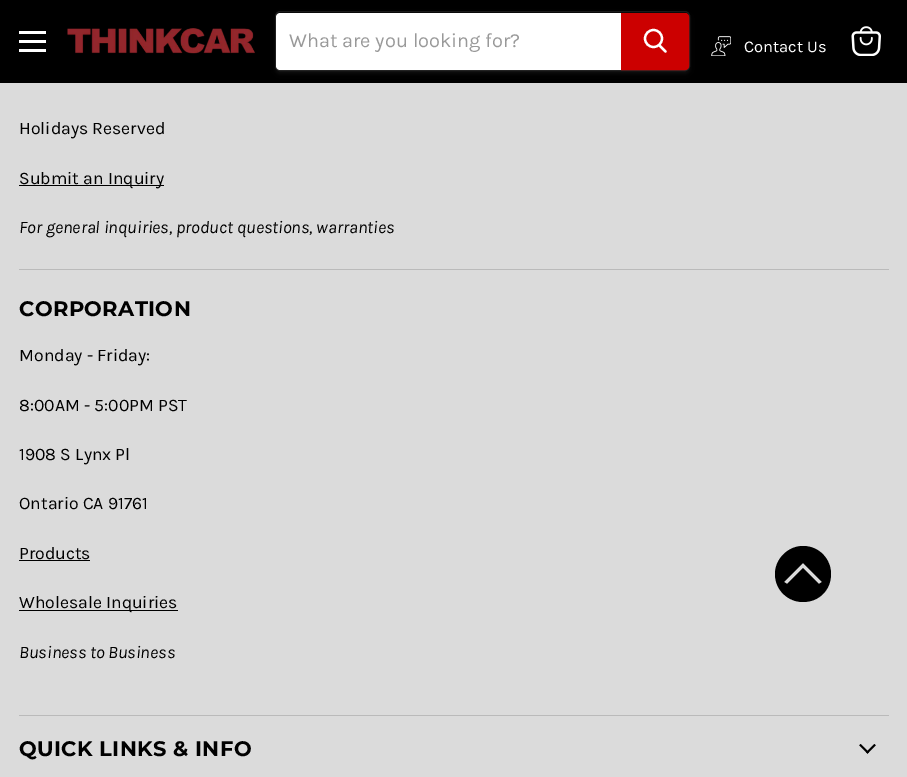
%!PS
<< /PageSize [907 777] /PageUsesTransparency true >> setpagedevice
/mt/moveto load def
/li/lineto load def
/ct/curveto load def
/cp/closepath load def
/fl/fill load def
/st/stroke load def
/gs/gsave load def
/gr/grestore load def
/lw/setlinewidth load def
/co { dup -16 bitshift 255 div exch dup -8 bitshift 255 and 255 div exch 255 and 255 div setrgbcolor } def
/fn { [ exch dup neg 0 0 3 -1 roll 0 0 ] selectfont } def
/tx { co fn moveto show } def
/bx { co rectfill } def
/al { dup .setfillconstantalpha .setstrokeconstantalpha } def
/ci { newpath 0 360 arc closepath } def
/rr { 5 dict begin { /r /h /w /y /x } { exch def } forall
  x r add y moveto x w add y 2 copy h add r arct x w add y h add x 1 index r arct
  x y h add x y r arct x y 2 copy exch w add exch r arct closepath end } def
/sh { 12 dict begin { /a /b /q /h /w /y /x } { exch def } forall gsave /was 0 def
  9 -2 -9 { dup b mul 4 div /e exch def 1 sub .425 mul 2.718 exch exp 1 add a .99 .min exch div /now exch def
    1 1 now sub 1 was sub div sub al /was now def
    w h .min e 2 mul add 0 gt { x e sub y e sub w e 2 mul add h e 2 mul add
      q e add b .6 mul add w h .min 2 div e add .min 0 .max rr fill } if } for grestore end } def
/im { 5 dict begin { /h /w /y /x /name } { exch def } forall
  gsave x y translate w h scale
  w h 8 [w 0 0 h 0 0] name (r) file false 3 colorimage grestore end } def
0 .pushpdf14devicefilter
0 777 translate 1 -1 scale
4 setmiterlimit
0 0 907 777 16#DBDBDB bx
0 0 907 83 16#000000 bx
19 31 27 3 16#FFFFFF bx
19 40 27 3 16#FFFFFF bx
19 49 27 3 16#FFFFFF bx
(media/1.raw) 67 28 188 26 im
16#808080 co
275 14 415 60 5 2 .11 sh
0.2 al
275.5 11.5 414 59 4.5 rr st
1 al
16#FFFFFF co
280 13 mt 621 13 li 621 70 li 280 70 li 278 70 276 68 276 66 ct 276 17 li 276 15 278 13 280 13 ct cp fl
16#CC0000 co
621.5 13.5 mt 685 13.5 li 687 13.5 688.5 15 688.5 17 ct 688.5 66 li 688.5 68 687 69.5 685 69.5 ct 621.5 69.5 li cp gs fl gr
st
16#FFFFFF co
2.2 lw
1 setlinecap
665.5 51.5 mt 659.5 45.5 li st
0 setlinecap
653.5 38.5 8.5 ci st
(media/2.raw) 711 36 20 20 im
(media/3.raw) 851 26 30 30 im
19 269 870 1 16#BABABA bx
19 185 145 1 16#000000 bx
19 715 870 1 16#BABABA bx
19 560 71 1 16#000000 bx
19 610 159 1 16#000000 bx
(media/4.raw) 859 744 17 10 im
803 546 mt 788 546 775 559 775 574 ct 775 590 788 602 803 602 ct 819 602 831 590 831 574 ct 831 559 819 546 803 546 ct cp 819 584 mt 803 568 li 787 584 li 784 582 li 803 563 li 822 582 li cp eofill
(What are you looking for?) 289 47 /Karla-Regular 20 16#999999 tx
(Contact Us) 744 52 /Karla-Regular 16.5 16#FFFFFF tx
(Holidays Reserved) 19 134 /Karla-Regular 17.6 16#000000 tx
(Submit an Inquiry) 19 184 /Karla-Regular 17.6 16#000000 tx
(For general inquiries, product questions, warranties) 19 233 /Karla-Italic 17.6 16#000000 tx
/Montserrat-Bold 21 fn
19 316 mt .4 0 (CORPORATION) ashow
(Monday - Friday:) 19 361 /Karla-Regular 17.6 16#000000 tx
(8:00AM - 5:00PM PST) 19 411 /Karla-Regular 17.6 16#000000 tx
(1908 S Lynx Pl) 19 460 /Karla-Regular 17.6 16#000000 tx
(Ontario CA 91761) 19 509 /Karla-Regular 17.6 16#000000 tx
(Products) 19 559 /Karla-Regular 17.6 16#000000 tx
(Wholesale Inquiries) 19 608 /Karla-Regular 17.6 16#000000 tx
(Business to Business) 19 658 /Karla-Italic 17.6 16#000000 tx
/Montserrat-Bold 21 fn
19 756 mt .4 0 (QUICK LINKS & INFO) ashow
.poppdf14devicefilter showpage
